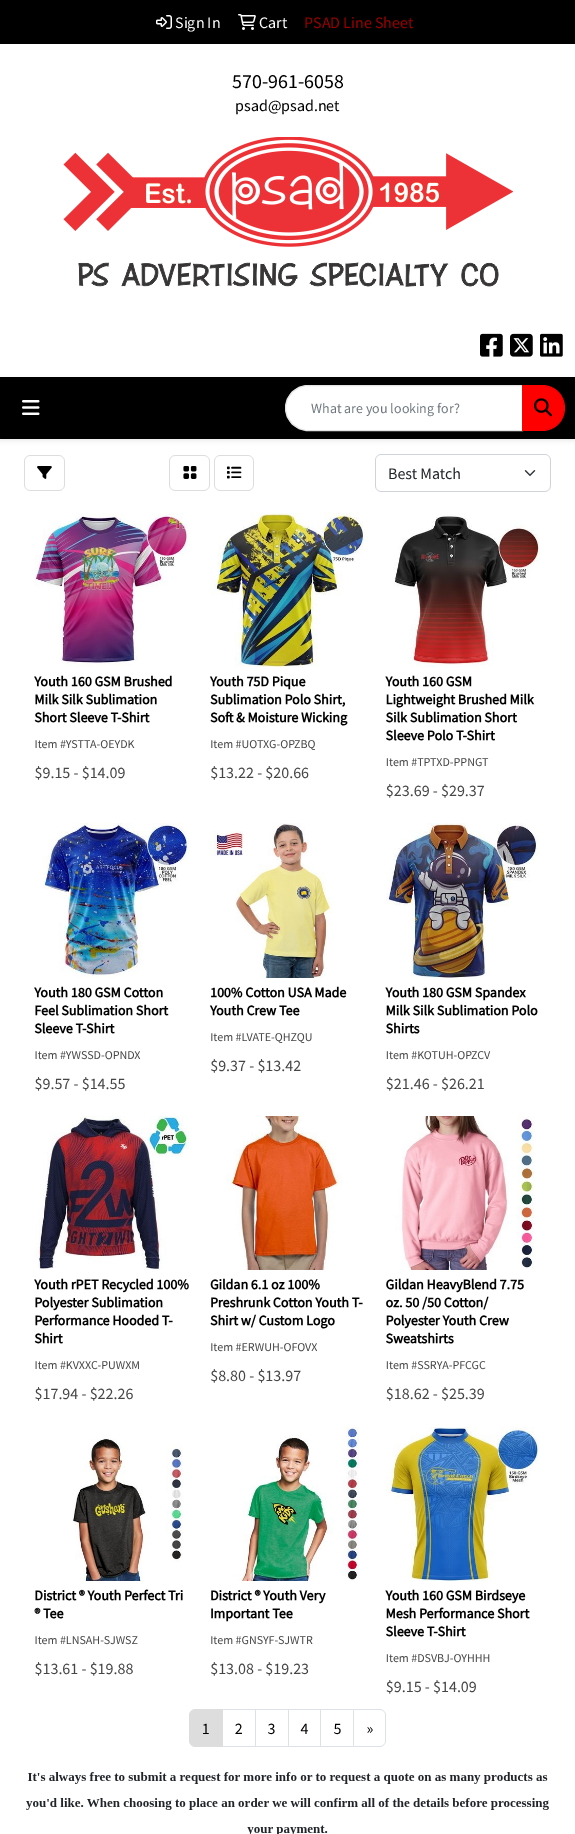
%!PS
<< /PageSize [575 1834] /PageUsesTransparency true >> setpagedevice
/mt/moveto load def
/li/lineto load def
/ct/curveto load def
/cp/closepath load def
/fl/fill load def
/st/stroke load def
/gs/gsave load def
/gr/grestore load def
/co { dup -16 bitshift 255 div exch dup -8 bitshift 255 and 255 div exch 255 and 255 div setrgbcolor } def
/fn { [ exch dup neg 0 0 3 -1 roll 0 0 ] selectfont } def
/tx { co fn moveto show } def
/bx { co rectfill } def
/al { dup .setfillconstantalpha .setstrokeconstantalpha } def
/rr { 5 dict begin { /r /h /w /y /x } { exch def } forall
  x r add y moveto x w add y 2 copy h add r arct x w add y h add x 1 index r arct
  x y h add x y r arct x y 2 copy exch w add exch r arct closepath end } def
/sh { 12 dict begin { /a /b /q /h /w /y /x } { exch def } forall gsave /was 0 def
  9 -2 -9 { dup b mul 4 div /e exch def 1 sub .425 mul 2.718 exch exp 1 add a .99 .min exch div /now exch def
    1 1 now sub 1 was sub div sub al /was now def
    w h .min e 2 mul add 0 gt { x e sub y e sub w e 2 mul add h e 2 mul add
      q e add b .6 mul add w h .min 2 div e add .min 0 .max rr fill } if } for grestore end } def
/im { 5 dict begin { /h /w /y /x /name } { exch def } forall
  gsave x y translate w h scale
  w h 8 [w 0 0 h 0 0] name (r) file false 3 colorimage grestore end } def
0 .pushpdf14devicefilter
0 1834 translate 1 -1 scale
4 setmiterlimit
0 0 575 1834 16#FFFFFF bx
0 0 575 44 16#000000 bx
(media/1.raw) 156 15 16 14 im
(media/2.raw) 238 14 18 16 im
(media/3.raw) 63 137 450 150 im
(media/4.raw) 480 333 23 24 im
(media/5.raw) 510 333 23 24 im
(media/6.raw) 540 333 23 24 im
0 379 575 62 0 2 .07 sh
0 377 575 62 16#000000 bx
(media/7.raw) 22 400 18 15 im
16#FFFFFF co
308 385.5 mt 522.5 385.5 li 522.5 430.5 li 308 430.5 li 295.5 430.5 285.5 420.5 285.5 408 ct 285.5 395.5 295.5 385.5 308 385.5 ct cp gs fl gr
16#E4E4E4 co
st
16#FF0000 co
522 386 mt 542 386 li 554 386 564 396 564 408 ct 564 420 554 430 542 430 ct 522 430 li cp fl
522 385 mt 542 385 li 555 385 565 395 565 408 ct 565 421 555 431 542 431 ct 522 431 li cp 522 386 mt 542 386 li 554 386 564 396 564 408 ct 564 420 554 430 542 430 ct 522 430 li cp eofill
(media/8.raw) 534 398 18 19 im
(media/9.raw) 24 454 527 1380 im
(Sign In) 175 28 /SourceSansPro-Regular 16 16#FFFFFF tx
(Cart) 259 28 /SourceSansPro-Regular 16 16#FFFFFF tx
(PSAD Line Sheet) 304 28 /SourceSansPro-Regular 16 16#990000 tx
(570-961-6058) 232 88 /SourceSansPro-Regular 20 16#000000 tx
(psad@psad.net) 235 111 /SourceSansPro-Regular 16 16#000000 tx
(What are you looking for?) 311 413 /SourceSansPro-Regular 14 16#6C757D tx
.poppdf14devicefilter showpage
